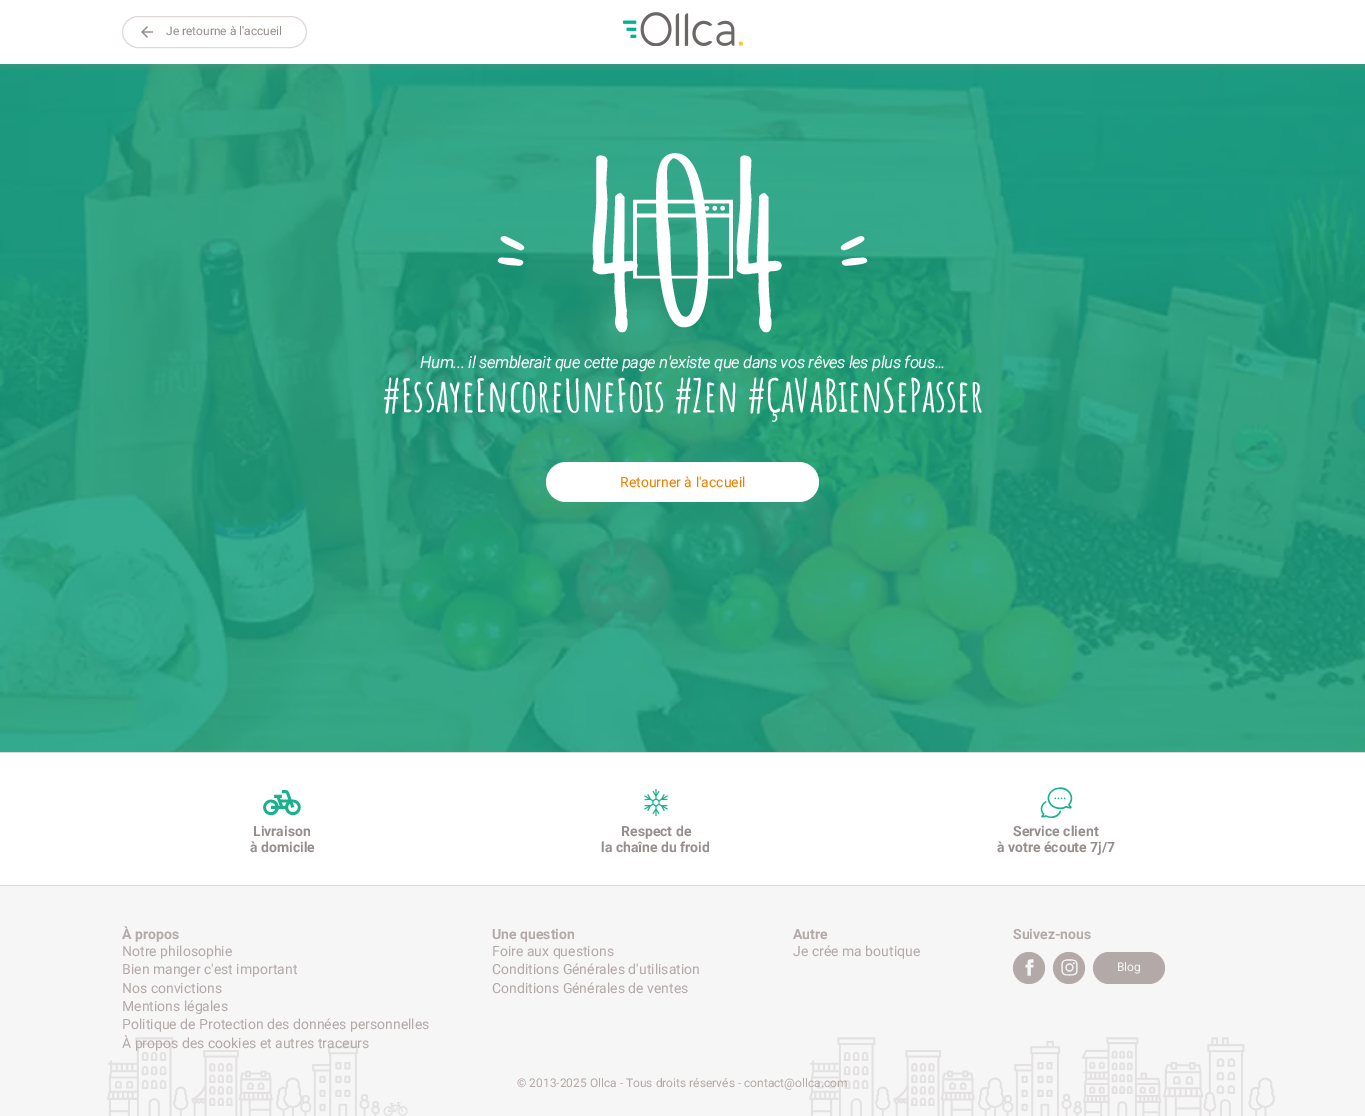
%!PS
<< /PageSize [1365 1116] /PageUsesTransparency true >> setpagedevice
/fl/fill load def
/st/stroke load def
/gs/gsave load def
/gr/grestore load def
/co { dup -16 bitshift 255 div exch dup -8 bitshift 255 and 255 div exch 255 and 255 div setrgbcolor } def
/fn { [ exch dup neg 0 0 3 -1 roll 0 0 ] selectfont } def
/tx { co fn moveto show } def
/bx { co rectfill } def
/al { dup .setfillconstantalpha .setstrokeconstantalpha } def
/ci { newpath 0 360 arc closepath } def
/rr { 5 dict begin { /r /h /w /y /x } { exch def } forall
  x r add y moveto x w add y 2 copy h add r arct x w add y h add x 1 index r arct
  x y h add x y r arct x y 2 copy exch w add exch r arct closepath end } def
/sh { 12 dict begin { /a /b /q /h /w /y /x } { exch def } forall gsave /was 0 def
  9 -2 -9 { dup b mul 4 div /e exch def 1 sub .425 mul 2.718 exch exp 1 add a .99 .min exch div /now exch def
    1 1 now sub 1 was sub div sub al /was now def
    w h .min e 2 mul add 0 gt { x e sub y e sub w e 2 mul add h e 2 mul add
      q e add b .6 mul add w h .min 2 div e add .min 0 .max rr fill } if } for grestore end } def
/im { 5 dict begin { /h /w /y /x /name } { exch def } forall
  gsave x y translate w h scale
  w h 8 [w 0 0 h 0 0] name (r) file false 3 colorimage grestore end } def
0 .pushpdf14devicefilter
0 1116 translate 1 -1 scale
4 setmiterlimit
0 0 1365 1116 16#FFFFFF bx
(media/3.raw) 0 64 1365 688 im
gs
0 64 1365 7 rectclip
16#968E8C co
0 1 1365 64 0 3.5 .35 sh
gr
16#E0D8D7 co
122.5 16.5 184 31 15.5 rr st
(media/1.raw) 141 26 12 12 im
(media/2.raw) 623 12 120 34 im
(media/4.raw) 497 236 28 30 im
(media/5.raw) 633 199 100 80 im
(media/6.raw) 840 236 28 30 im
16#FFFFFF co
546 462 273 40 20 rr fl
0 752 1365 1 16#E0D8D7 bx
0 885 1365 1 16#E0D8D7 bx
(media/7.raw) 263 790 38 26 im
(media/8.raw) 644 789 24 27 im
(media/9.raw) 1040 787 33 31 im
0 886 1365 230 16#F6F6F6 bx
(media/10.raw) 107 1037 1168 79 im
16#B2A9A8 co
1029 968 16 ci fl
(media/11.raw) 1025 959 9 17 im
1069 968 16 ci fl
(media/12.raw) 1061 959 17 17 im
1093 952 72 32 16 rr fl
(Je retourne à l'accueil) 166 35 /Roboto-Regular 12 16#968E8C tx
(404) 576 328 /AmaticSC-Bold 230 16#FFFFFF tx
(Hum... il semblerait que cette page n'existe que dans vos rêves les plus fous…) 420 368 /Roboto-BoldItalic 16 16#FFFFFF tx
(#EssayeEncoreUneFois #Zen #ÇaVaBienSePasser) 382 412 /AmaticSC-Bold 45 16#FFFFFF tx
(Retourner à l'accueil) 620 487 /Roboto-Regular 14 16#EF7D00 tx
(Livraison) 253 836 /Roboto-Bold 14 16#968E8C tx
(à domicile) 250 852 /Roboto-Bold 14 16#968E8C tx
(Respect de) 621 836 /Roboto-Bold 14 16#968E8C tx
(la chaîne du froid) 601 852 /Roboto-Bold 14 16#968E8C tx
(Service client) 1013 836 /Roboto-Bold 14 16#968E8C tx
(à votre écoute 7j/7) 997 852 /Roboto-Bold 14 16#968E8C tx
(À propos) 122 939 /Roboto-Bold 14 16#B2A9A8 tx
(Notre philosophie) 122 956 /Roboto-Regular 14 16#B2A9A8 tx
(Bien manger c'est important) 122 974 /Roboto-Regular 14 16#B2A9A8 tx
(Nos convictions) 122 993 /Roboto-Regular 14 16#B2A9A8 tx
(Mentions légales) 122 1011 /Roboto-Regular 14 16#B2A9A8 tx
(Politique de Protection des données personnelles) 122 1029 /Roboto-Regular 14 16#B2A9A8 tx
(À propos des cookies et autres traceurs) 122 1048 /Roboto-Regular 14 16#B2A9A8 tx
(Une question) 492 939 /Roboto-Bold 14 16#B2A9A8 tx
(Foire aux questions) 492 956 /Roboto-Regular 14 16#B2A9A8 tx
(Conditions Générales d'utilisation) 492 974 /Roboto-Regular 14 16#B2A9A8 tx
(Conditions Générales de ventes) 492 993 /Roboto-Regular 14 16#B2A9A8 tx
(Autre) 793 939 /Roboto-Bold 14 16#B2A9A8 tx
(Je crée ma boutique) 793 956 /Roboto-Regular 14 16#B2A9A8 tx
(Suivez-nous) 1013 939 /Roboto-Bold 14 16#B2A9A8 tx
(Blog) 1117 971 /Roboto-Regular 12 16#F6F6F6 tx
(© 2013-2025 Ollca - Tous droits réservés - contact@ollca.com) 517 1087 /Roboto-Regular 12 16#B2A9A8 tx
.poppdf14devicefilter showpage
